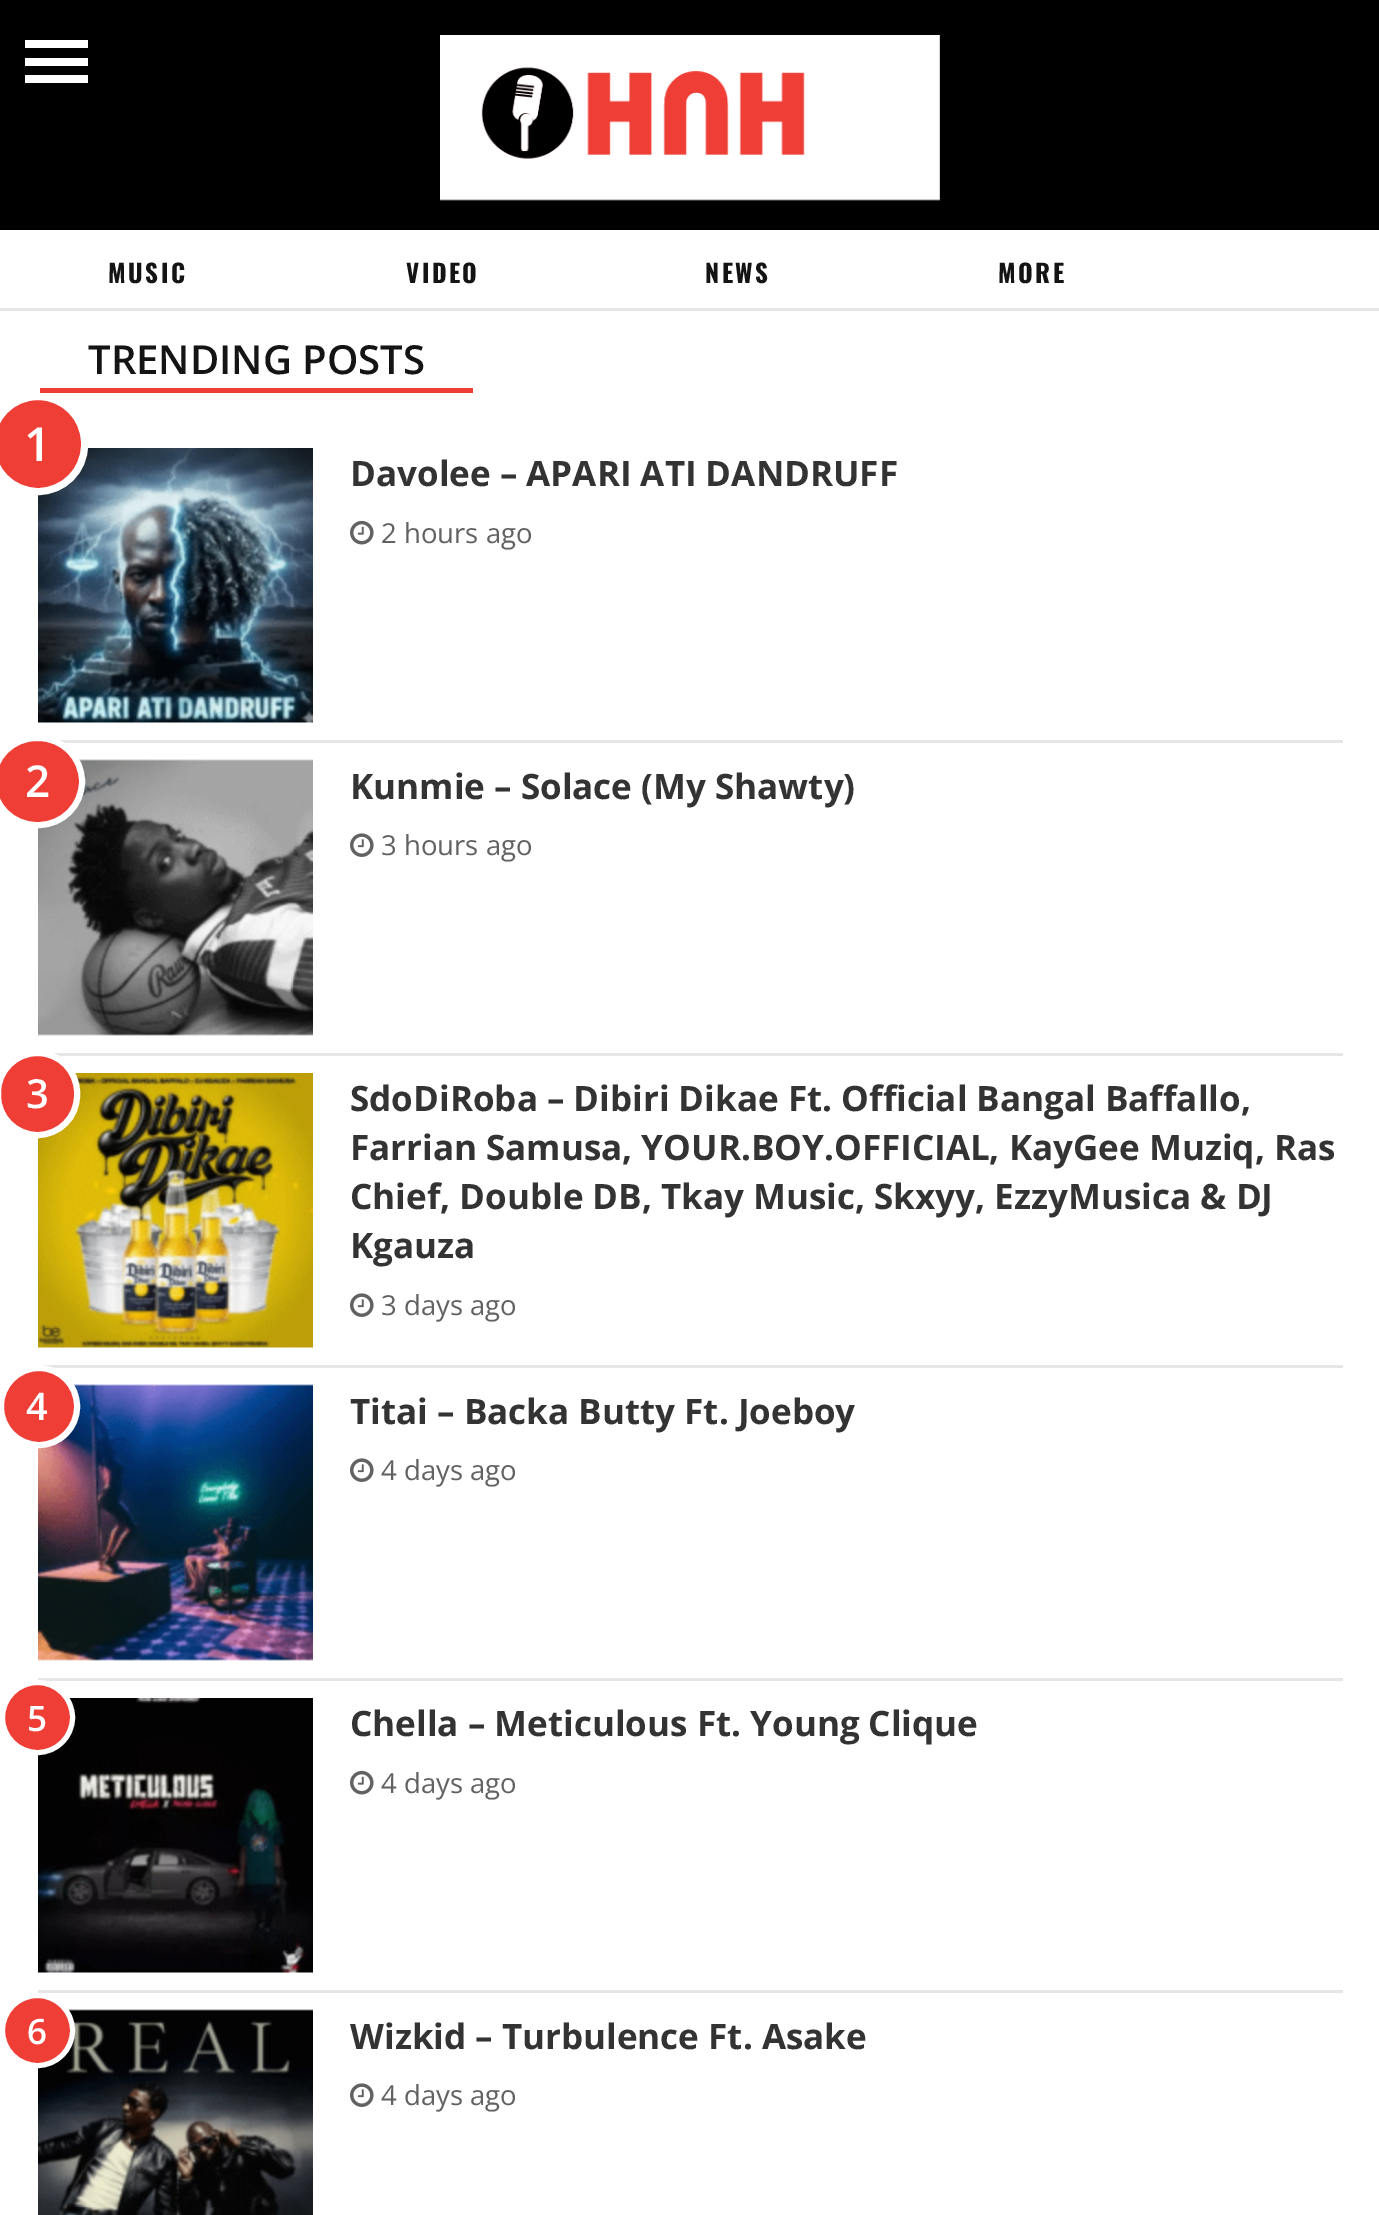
%!PS
<< /PageSize [1379 2215] >> setpagedevice
/mt/moveto load def
/fl/fill load def
/st/stroke load def
/gs/gsave load def
/gr/grestore load def
/lw/setlinewidth load def
/co { dup -16 bitshift 255 div exch dup -8 bitshift 255 and 255 div exch 255 and 255 div setrgbcolor } def
/fn { [ exch dup neg 0 0 3 -1 roll 0 0 ] selectfont } def
/tx { co fn moveto show } def
/bx { co rectfill } def
/ci { newpath 0 360 arc closepath } def
/rr { 5 dict begin { /r /h /w /y /x } { exch def } forall
  x r add y moveto x w add y 2 copy h add r arct x w add y h add x 1 index r arct
  x y h add x y r arct x y 2 copy exch w add exch r arct closepath end } def
/im { 5 dict begin { /h /w /y /x /name } { exch def } forall
  gsave x y translate w h scale
  w h 8 [w 0 0 h 0 0] name (r) file false 3 colorimage grestore end } def
0 2215 translate 1 -1 scale
4 setmiterlimit
0 0 1379 2215 16#FFFFFF bx
0 0 1379 230 16#000000 bx
25 40 63 8 16#FFFFFF bx
25 58 63 8 16#FFFFFF bx
25 75 63 8 16#FFFFFF bx
(media/1.raw) 440 35 500 166 im
0 308 1379 3 16#E6E6E6 bx
40 388 433 5 16#EF3E36 bx
59 740 1284 3 16#E4E6E8 bx
(media/2.raw) 38 448 275 275 im
16#EF3E36 co
-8.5 396.5 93 95 46.5 rr gs fl gr
16#FFFFFF co
7 lw
st
(media/3.raw) 350 520 24 25 im
53 1053 1290 3 16#E4E6E8 bx
(media/4.raw) 38 759 275 277 im
16#EF3E36 co
-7 738 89 87 43.5 rr gs fl gr
16#FFFFFF co
6 lw
st
(media/5.raw) 350 833 24 24 im
38 1365 1305 3 16#E4E6E8 bx
(media/6.raw) 38 1073 275 275 im
16#EF3E36 co
-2 1053 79 82 39.5 rr gs fl gr
16#FFFFFF co
st
(media/5.raw) 350 1293 24 24 im
38 1678 1305 3 16#E4E6E8 bx
(media/7.raw) 38 1384 275 277 im
16#EF3E36 co
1 1368 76 77 38 rr gs fl gr
16#FFFFFF co
st
(media/5.raw) 350 1458 24 24 im
38 1990 1305 3 16#E4E6E8 bx
(media/8.raw) 38 1698 275 275 im
16#EF3E36 co
37.5 1717.5 35 ci gs fl gr
16#FFFFFF co
5 lw
st
(media/3.raw) 350 1770 24 25 im
(media/9.raw) 38 2009 275 206 im
16#EF3E36 co
37.5 2030.5 35 ci gs fl gr
16#FFFFFF co
st
(media/5.raw) 350 2083 24 24 im
/Oswald-Bold 25 fn
16#141414 co
108 283 mt 2.5 0 (MUSIC) ashow
406 283 mt 2.5 0 (VIDEO) ashow
705 283 mt 2.5 0 (NEWS) ashow
998 283 mt 2.5 0 (MORE) ashow
(TRENDING POSTS) 88 374 /OpenSans-SemiBold 40 16#141414 tx
(1) 24 461 /OpenSans-SemiBold 47 16#FFFFFF tx
(Davolee – APARI ATI DANDRUFF) 350 486 /OpenSans-Bold 35 16#333333 tx
(2 hours ago) 381 543 /OpenSans-Regular 27.5 16#626262 tx
(2) 25 797 /OpenSans-SemiBold 44 16#FFFFFF tx
(Kunmie – Solace \(My Shawty\)) 350 799 /OpenSans-Bold 35 16#333333 tx
(3 hours ago) 381 855 /OpenSans-Regular 27.5 16#626262 tx
(3) 26 1108 /OpenSans-SemiBold 40 16#FFFFFF tx
(SdoDiRoba – Dibiri Dikae Ft. Official Bangal Baffallo,) 350 1111 /OpenSans-Bold 35 16#333333 tx
(Farrian Samusa, YOUR.BOY.OFFICIAL, KayGee Muziq, Ras) 350 1160 /OpenSans-Bold 35 16#333333 tx
(Chief, Double DB, Tkay Music, Skxyy, EzzyMusica & DJ) 350 1209 /OpenSans-Bold 35 16#333333 tx
(Kgauza) 350 1258 /OpenSans-Bold 35 16#333333 tx
(3 days ago) 381 1315 /OpenSans-Regular 27.5 16#626262 tx
(4) 26 1420 /OpenSans-SemiBold 38 16#FFFFFF tx
(Titai – Backa Butty Ft. Joeboy) 350 1424 /OpenSans-Bold 35 16#333333 tx
(4 days ago) 381 1480 /OpenSans-Regular 27.5 16#626262 tx
(5) 27 1731 /OpenSans-SemiBold 35 16#FFFFFF tx
(Chella – Meticulous Ft. Young Clique) 350 1736 /OpenSans-Bold 35 16#333333 tx
(4 days ago) 381 1793 /OpenSans-Regular 27.5 16#626262 tx
(6) 27 2044 /OpenSans-SemiBold 35 16#FFFFFF tx
(Wizkid – Turbulence Ft. Asake) 350 2049 /OpenSans-Bold 35 16#333333 tx
(4 days ago) 381 2105 /OpenSans-Regular 27.5 16#626262 tx
showpage
